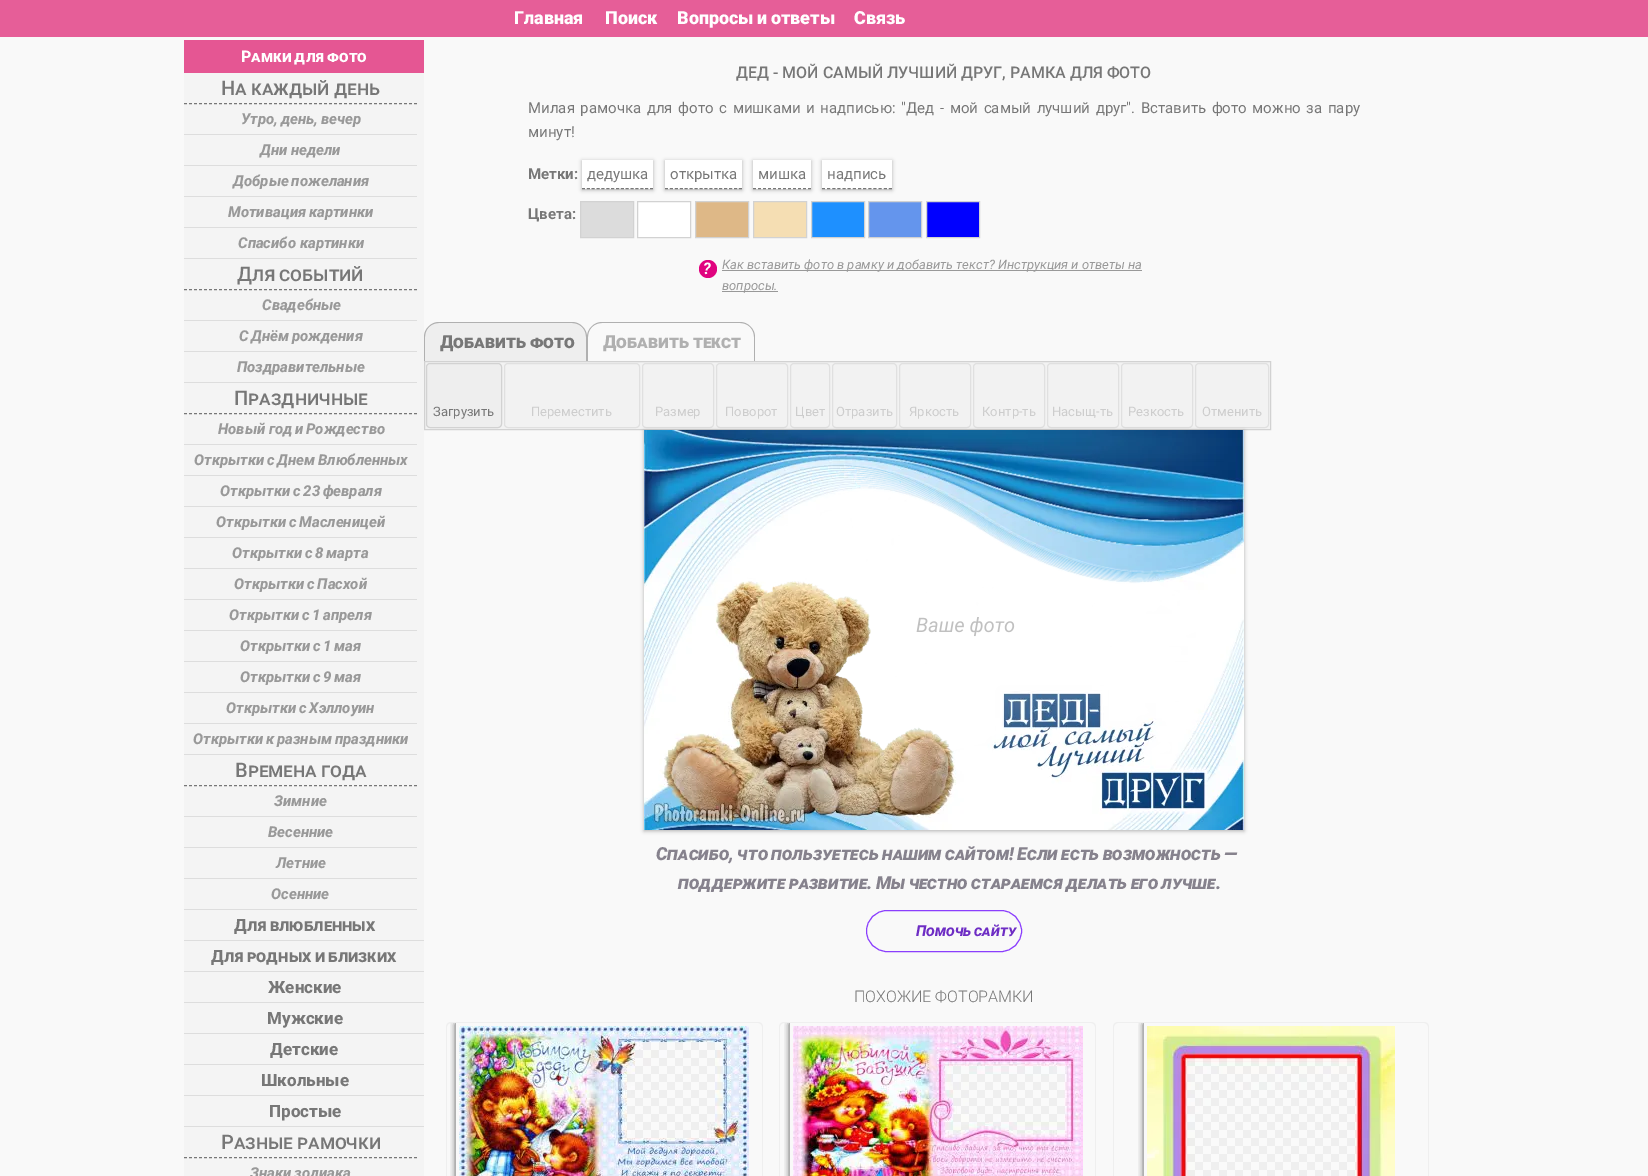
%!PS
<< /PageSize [1648 1176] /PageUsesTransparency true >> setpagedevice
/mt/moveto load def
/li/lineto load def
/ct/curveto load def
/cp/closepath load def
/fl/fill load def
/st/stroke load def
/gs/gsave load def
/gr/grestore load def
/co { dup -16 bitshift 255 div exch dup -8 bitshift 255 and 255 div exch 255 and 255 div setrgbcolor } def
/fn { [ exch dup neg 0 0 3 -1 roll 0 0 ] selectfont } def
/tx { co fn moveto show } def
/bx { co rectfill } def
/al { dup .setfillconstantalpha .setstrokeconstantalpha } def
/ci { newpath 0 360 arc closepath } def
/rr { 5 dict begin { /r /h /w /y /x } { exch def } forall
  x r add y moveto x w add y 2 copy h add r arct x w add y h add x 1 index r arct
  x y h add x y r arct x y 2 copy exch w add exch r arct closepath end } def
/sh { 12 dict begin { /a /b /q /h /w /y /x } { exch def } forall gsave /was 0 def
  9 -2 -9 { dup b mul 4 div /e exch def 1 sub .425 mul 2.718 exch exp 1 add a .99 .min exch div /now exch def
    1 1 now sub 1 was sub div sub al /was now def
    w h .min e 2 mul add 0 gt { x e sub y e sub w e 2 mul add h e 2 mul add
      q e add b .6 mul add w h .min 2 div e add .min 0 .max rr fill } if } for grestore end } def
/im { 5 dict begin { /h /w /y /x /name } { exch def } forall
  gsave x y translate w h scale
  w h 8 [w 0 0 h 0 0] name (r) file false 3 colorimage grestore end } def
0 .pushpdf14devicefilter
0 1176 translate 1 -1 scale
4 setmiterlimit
0 0 1648 1176 16#F9F9F9 bx
0 0 1648 37 16#E65E98 bx
184 73 240 1103 16#F4F4F4 bx
184 40 240 33 16#E55693 bx
16#777777 co
[3 2] 0 setdash
184 103.5 mt 417 103.5 li st
184 134 233 1 16#DDDDDD bx
184 165 233 1 16#DDDDDD bx
184 196 233 1 16#DDDDDD bx
184 227 233 1 16#DDDDDD bx
184 258 233 1 16#DDDDDD bx
16#777777 co
184 289.5 mt 417 289.5 li st
184 320 233 1 16#DDDDDD bx
184 351 233 1 16#DDDDDD bx
184 382 233 1 16#DDDDDD bx
16#777777 co
184 413.5 mt 417 413.5 li st
184 444 233 1 16#DDDDDD bx
184 475 233 1 16#DDDDDD bx
184 506 233 1 16#DDDDDD bx
184 537 233 1 16#DDDDDD bx
184 568 233 1 16#DDDDDD bx
184 599 233 1 16#DDDDDD bx
184 630 233 1 16#DDDDDD bx
184 661 233 1 16#DDDDDD bx
184 692 233 1 16#DDDDDD bx
184 723 233 1 16#DDDDDD bx
184 754 233 1 16#DDDDDD bx
16#777777 co
184 785.5 mt 417 785.5 li st
184 816 233 1 16#DDDDDD bx
184 847 233 1 16#DDDDDD bx
184 878 233 1 16#DDDDDD bx
184 909 233 1 16#DDDDDD bx
184 940 240 1 16#DDDDDD bx
184 971 240 1 16#DDDDDD bx
184 1002 240 1 16#DDDDDD bx
184 1033 240 1 16#DDDDDD bx
184 1064 240 1 16#DDDDDD bx
184 1095 240 1 16#DDDDDD bx
184 1126 240 1 16#DDDDDD bx
16#777777 co
184 1157.5 mt 417 1157.5 li st
16#000000 co
582 161 71 29 0 2 .3 sh
582 160 71 29 16#FFFFFF bx
16#777777 co
[3 1.86] 0 setdash
582 188.5 mt 653 188.5 li st
16#000000 co
665 161 77 29 0 2 .3 sh
665 160 77 29 16#FFFFFF bx
16#777777 co
[3 1.93] 0 setdash
665 188.5 mt 742 188.5 li st
16#000000 co
753 161 58 29 0 2 .3 sh
753 160 58 29 16#FFFFFF bx
16#777777 co
[3 2] 0 setdash
753 188.5 mt 811 188.5 li st
16#000000 co
822 161 70 29 0 2 .3 sh
822 160 70 29 16#FFFFFF bx
16#777777 co
[3 2.15] 0 setdash
822 188.5 mt 892 188.5 li st
16#DCDCDC co
580.5 201.5 mt 633.5 201.5 li 633.5 237.5 li 580.5 237.5 li cp gs fl gr
16#D2D2D2 co
[] 0 setdash
st
16#FFFFFF co
637.5 201.5 mt 690.5 201.5 li 690.5 237.5 li 637.5 237.5 li cp gs fl gr
16#D2D2D2 co
st
16#DEB887 co
695.5 201.5 mt 748.5 201.5 li 748.5 237.5 li 695.5 237.5 li cp gs fl gr
16#D2D2D2 co
st
16#F5DEB3 co
753.5 201.5 mt 806.5 201.5 li 806.5 237.5 li 753.5 237.5 li cp gs fl gr
16#D2D2D2 co
st
16#1E90FF co
811.5 201.5 mt 864.5 201.5 li 864.5 237.5 li 811.5 237.5 li cp gs fl gr
16#D2D2D2 co
st
16#6495ED co
868.5 201.5 mt 921.5 201.5 li 921.5 237.5 li 868.5 237.5 li cp gs fl gr
16#D2D2D2 co
st
16#0000FF co
926.5 201.5 mt 979.5 201.5 li 979.5 237.5 li 926.5 237.5 li cp gs fl gr
16#D2D2D2 co
st
16#E0037F co
708 269 9 ci fl
722 270 420 1 16#999999 bx
722 291 56 1 16#999999 bx
16#EEEEEE co
439 322 mt 572 322 li 580.5 322 587 328.5 587 337 ct 587 361 li 424 361 li 424 337 li 424 328.5 430.5 322 439 322 ct cp fl
16#B0B0B0 co
439 322 mt 572 322 li 580 322 587 329 587 337 ct 587 361 li 424 361 li 424 337 li 424 329 431 322 439 322 ct cp 439 323 mt 572 323 li 580 323 586 329 586 337 ct 586 361 li 425 361 li 425 337 li 425 329 431 323 439 323 ct cp eofill
602 322 mt 740 322 li 748 322 755 329 755 337 ct 755 361 li 587 361 li 587 337 li 587 329 594 322 602 322 ct cp 602 323 mt 740 323 li 748 323 754 329 754 337 ct 754 361 li 588 361 li 588 337 li 588 329 594 323 602 323 ct cp eofill
16#F2F2F2 co
424.5 361.5 mt 1270.5 361.5 li 1270.5 429.5 li 424.5 429.5 li cp gs fl gr
16#D2D2D2 co
st
16#EEEEEE co
426.5 363.5 75 64 3.5 rr gs fl gr
16#D2D2D2 co
st
16#E0E0E0 co
504.5 363.5 135 64 3.5 rr st
642.5 363.5 71 64 3.5 rr st
716.5 363.5 71 64 3.5 rr st
790.5 363.5 39 64 3.5 rr st
832.5 363.5 64 64 3.5 rr st
899.5 363.5 71 64 3.5 rr st
973.5 363.5 71 64 3.5 rr st
1047.5 363.5 71 64 3.5 rr st
1121.5 363.5 71 64 3.5 rr st
1195.5 363.5 73 64 3.5 rr st
16#000000 co
644 431 600 400 0 2 .3 sh
742 453 473 345 16#FFFFFF bx
16#8B3FFD co
866.5 910.5 155 41 20.5 rr st
16#EFEFEF co
451 1022 mt 758 1022 li 761 1022 763 1024 763 1027 ct 763 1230 li 446 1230 li 446 1027 li 446 1024 448 1022 451 1022 ct cp 451 1023 mt 758 1023 li 760 1023 762 1025 762 1027 ct 762 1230 li 447 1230 li 447 1027 li 447 1025 449 1023 451 1023 ct cp eofill
gs
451 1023 mt 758 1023 li 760 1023 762 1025 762 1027 ct 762 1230 li 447 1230 li 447 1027 li 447 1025 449 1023 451 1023 ct cp clip newpath
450 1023 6 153 rectclip
16#000000 co
457 1024 280 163 0 3.5 1 sh
gr
(media/2.raw) 459 1026 290 150 im
784 1022 mt 1091 1022 li 1094 1022 1096 1024 1096 1027 ct 1096 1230 li 779 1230 li 779 1027 li 779 1024 781 1022 784 1022 ct cp 784 1023 mt 1091 1023 li 1093 1023 1095 1025 1095 1027 ct 1095 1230 li 780 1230 li 780 1027 li 780 1025 782 1023 784 1023 ct cp eofill
gs
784 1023 mt 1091 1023 li 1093 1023 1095 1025 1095 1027 ct 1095 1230 li 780 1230 li 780 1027 li 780 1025 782 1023 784 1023 ct cp clip newpath
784 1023 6 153 rectclip
16#000000 co
791 1024 280 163 0 3.5 1 sh
gr
(media/3.raw) 793 1026 290 150 im
1118 1022 mt 1424 1022 li 1427 1022 1429 1024 1429 1027 ct 1429 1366 li 1113 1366 li 1113 1027 li 1113 1024 1115 1022 1118 1022 ct cp 1118 1023 mt 1424 1023 li 1426 1023 1428 1025 1428 1027 ct 1428 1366 li 1114 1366 li 1114 1027 li 1114 1025 1116 1023 1118 1023 ct cp eofill
gs
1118 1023 mt 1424 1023 li 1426 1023 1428 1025 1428 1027 ct 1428 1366 li 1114 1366 li 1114 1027 li 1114 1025 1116 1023 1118 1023 ct cp clip newpath
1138 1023 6 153 rectclip
16#000000 co
1145 1024 238 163 0 3.5 1 sh
gr
(media/4.raw) 1147 1026 248 150 im
(Главная) 514 24 /Roboto-Black 18 16#FFFFFF tx
(Поиск) 605 24 /Roboto-Black 18 16#FFFFFF tx
677 24 mt -1 0 32 (Вопросы и ответы) widthshow
(Связь) 854 24 /Roboto-Black 18 16#FFFFFF tx
/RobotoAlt-ExtraBold 16 fn
241 62 mt -1 0 32 (Рамки для фото) widthshow
/RobotoAlt-Medium 20 fn
16#777777 co
221 95 mt -1 0 32 (На каждый день) widthshow
/Roboto-ExtraBoldItalic 15 fn
16#999999 co
241 124 mt -1 0 32 (Утро, день, вечер) widthshow
(Дни недели) 260 155 /Roboto-ExtraBoldItalic 15 16#999999 tx
233 186 mt -1 0 32 (Добрые пожелания) widthshow
228 217 mt -1 0 32 (Мотивация картинки) widthshow
(Спасибо картинки) 238 248 /Roboto-ExtraBoldItalic 15 16#999999 tx
/RobotoAlt-Medium 20 fn
16#777777 co
237 281 mt -1 0 32 (Для событий) widthshow
(Свадебные) 262 310 /Roboto-ExtraBoldItalic 15 16#999999 tx
239 341 mt -1 0 32 (С Днём рождения) widthshow
(Поздравительные) 237 372 /Roboto-ExtraBoldItalic 15 16#999999 tx
(Праздничные) 234 405 /RobotoAlt-Medium 20 16#777777 tx
(Новый год) 218 434 /Roboto-ExtraBoldItalic 15 16#999999 tx
295 434 mt -1 0 32 (и Рождество) widthshow
194 465 mt -1 0 32 (Открытки с Днем Влюбленных) widthshow
220 496 mt -1 0 32 (Открытки с 23 февраля) widthshow
216 527 mt -1 0 32 (Открытки с Масленицей) widthshow
232 558 mt -1 0 32 (Открытки с 8 марта) widthshow
234 589 mt -1 0 32 (Открытки с Пасхой) widthshow
229 620 mt -1 0 32 (Открытки с 1 апреля) widthshow
240 651 mt -1 0 32 (Открытки с 1 мая) widthshow
240 682 mt -1 0 32 (Открытки с 9 мая) widthshow
226 713 mt -1 0 32 (Открытки с Хэллоуин) widthshow
193 744 mt -1 0 32 (Открытки к разным праздники) widthshow
/RobotoAlt-Medium 20 fn
16#777777 co
235 777 mt -1 0 32 (Времена года) widthshow
(Зимние) 274 806 /Roboto-ExtraBoldItalic 15 16#999999 tx
(Весенние) 268 837 /Roboto-ExtraBoldItalic 15 16#999999 tx
(Летние) 276 868 /Roboto-ExtraBoldItalic 15 16#999999 tx
(Осенние) 271 899 /Roboto-ExtraBoldItalic 15 16#999999 tx
/RobotoAlt-ExtraBold 17 fn
16#777777 co
234 931 mt -1 0 32 (Для влюбленных) widthshow
211 962 mt -1 0 32 (Для родных и близких) widthshow
(Женские) 268 993 /Roboto-ExtraBold 17 16#777777 tx
(Мужские) 267 1024 /Roboto-ExtraBold 17 16#777777 tx
(Детские) 270 1055 /Roboto-ExtraBold 17 16#777777 tx
(Школьные) 261 1086 /Roboto-ExtraBold 17 16#777777 tx
(Простые) 269 1117 /Roboto-ExtraBold 17 16#777777 tx
/RobotoAlt-Medium 20 fn
221 1149 mt -1 0 32 (Разные рамочки) widthshow
/Roboto-ExtraBoldItalic 15 fn
16#999999 co
250 1178 mt -1 0 32 (Знаки зодиака) widthshow
(ДЕД - МОЙ САМЫЙ ЛУЧШИЙ ДРУГ, РАМКА ДЛЯ ФОТО) 736 78 /Roboto-Medium 16 16#777777 tx
/Roboto-Regular 15 fn
528 113 mt 1.9 0 32 (Милая рамочка для фото с мишками и надписью: "Дед - мой самый лучший друг". Вставить фото можно за пару) widthshow
(минут!) 528 137 /Roboto-Regular 15 16#777777 tx
(Метки:) 528 179 /Roboto-Bold 15 16#777777 tx
(дедушка) 587 179 /Roboto-Regular 15 16#777777 tx
(открытка) 670 179 /Roboto-Regular 15 16#777777 tx
(мишка) 758 179 /Roboto-Regular 15 16#777777 tx
(надпись) 827 179 /Roboto-Regular 15 16#777777 tx
(Цвета:) 528 219 /Roboto-Bold 15 16#777777 tx
(?) 703 274 /Roboto-BoldItalic 16 16#FFFFFF tx
(Как вставить фото в рамку и добавить текст? Инструкция и ответы на) 722 269 /Roboto-Italic 13 16#999999 tx
(вопросы.) 722 290 /Roboto-Italic 13 16#999999 tx
/RobotoAlt-Black 18 fn
16#777777 co
440 348 mt -1 0 32 (Добавить фото) widthshow
16#B0B0B0 co
603 348 mt -1 0 32 (Добавить текст) widthshow
(Загрузить) 433 416 /Roboto-Regular 13 16#777777 tx
(Переместить) 531 416 /Roboto-Regular 13 16#CDCDCD tx
(Размер) 655 416 /Roboto-Regular 13 16#CDCDCD tx
(Поворот) 725 416 /Roboto-Regular 13 16#CDCDCD tx
(Цвет) 795 416 /Roboto-Regular 13 16#CDCDCD tx
(Отразить) 836 416 /Roboto-Regular 13 16#CDCDCD tx
(Яркость) 909 416 /Roboto-Regular 13 16#CDCDCD tx
(Контр-ть) 982 416 /Roboto-Regular 13 16#CDCDCD tx
(Насыщ-ть) 1052 416 /Roboto-Regular 13 16#CDCDCD tx
(Резкость) 1128 416 /Roboto-Regular 13 16#CDCDCD tx
(Отменить) 1202 416 /Roboto-Regular 13 16#CDCDCD tx
(Ваше фото) 916 632 /Roboto-Italic 20 16#C0C0C0 tx
(media/1.raw) 644 430 600 400 im
/RobotoAlt-BlackItalic 18 fn
16#86828D co
656 860 mt -1 0 32 (Спасибо, что пользуетесь нашим сайтом! Если есть возможность —) widthshow
678 889 mt -1 0 32 (поддержите развитие. Мы честно стараемся делать его лучше.) widthshow
/RobotoAlt-ExtraBoldItalic 15 fn
16#6E2DC4 co
916 936 mt -1 0 32 (Помочь сайту) widthshow
(ПОХОЖИЕ ФОТОРАМКИ) 854 1002 /Roboto-Light 16 16#777777 tx
.poppdf14devicefilter showpage
